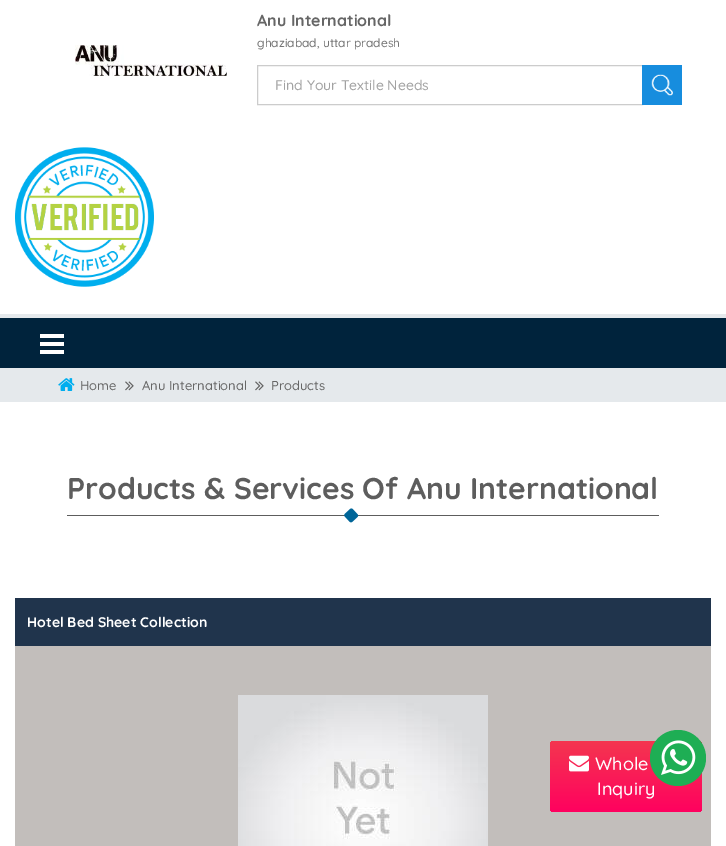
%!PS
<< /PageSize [726 846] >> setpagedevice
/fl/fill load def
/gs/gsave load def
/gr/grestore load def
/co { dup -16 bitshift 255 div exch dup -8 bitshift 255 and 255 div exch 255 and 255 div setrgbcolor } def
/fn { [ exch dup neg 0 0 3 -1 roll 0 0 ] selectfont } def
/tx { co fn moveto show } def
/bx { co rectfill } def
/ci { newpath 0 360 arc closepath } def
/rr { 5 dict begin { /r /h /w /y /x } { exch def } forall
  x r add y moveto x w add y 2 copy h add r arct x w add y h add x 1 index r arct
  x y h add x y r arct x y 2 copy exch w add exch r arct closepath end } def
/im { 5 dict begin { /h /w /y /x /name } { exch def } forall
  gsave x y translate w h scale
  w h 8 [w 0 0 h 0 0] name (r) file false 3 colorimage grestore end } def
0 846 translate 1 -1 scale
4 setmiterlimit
0 0 726 846 16#E5E9EC bx
0 0 726 314 16#FFFFFF bx
(media/1.raw) 75 45 152 31 im
16#CCCCCC co
257.5 65.5 385 39 rectstroke
642 65 40 40 16#178DDE bx
(media/2.raw) 651 74 22 22 im
(media/3.raw) 15 147 139 140 im
0 318 726 50 16#00233C bx
40 334 24 4 16#FFFFFF bx
40 342 24 4 16#FFFFFF bx
40 350 24 4 16#FFFFFF bx
(media/4.raw) 58 378 17 13 im
(media/5.raw) 125 381 9 10 im
(media/5.raw) 255 381 9 10 im
0 402 726 444 16#FFFFFF bx
67 515 592 1 16#5D5D5D bx
(media/6.raw) 344 508 15 15 im
15 646 696 200 16#C2BEBB bx
15 598 696 48 16#20344C bx
(media/7.raw) 238 695 250 151 im
gs 550 741 152 71 4 rr clip newpath
<< /ShadingType 2 /ColorSpace /DeviceRGB /Coords [626 741 626 812] /Extend [true true] /Function << /FunctionType 2 /Domain [0 1] /C0 [.957 .212 .31] /C1 [1 .004 .373] /N 1 >> >> shfill gr
(media/8.raw) 569 755 20 17 im
(Anu International) 257 26 /Quicksand-Bold 16 16#666666 tx
(ghaziabad, uttar pradesh) 257 47 /Quicksand-Medium 12 16#737373 tx
(Find Your Textile Needs) 275 90 /Quicksand-Medium 14 16#A2A2A2 tx
(Home) 80 390 /Quicksand-Medium 13 16#666666 tx
(Anu International) 142 390 /Quicksand-Medium 13 16#666666 tx
(Products) 271 390 /Quicksand-Medium 13 16#666666 tx
(Products & Services Of Anu International) 67 499 /Quicksand-Bold 30 16#5D5D5D tx
(Hotel Bed Sheet Collection) 27 627 /Quicksand-Bold 14 16#FFFFFF tx
(Whole) 595 770 /Quicksand-Medium 18 16#FFFFFF tx
(Inquiry) 597 795 /Quicksand-Medium 18 16#FFFFFF tx
16#1EAE54 co
678 758 28 ci fl
(media/9.raw) 661 740 35 35 im
showpage
